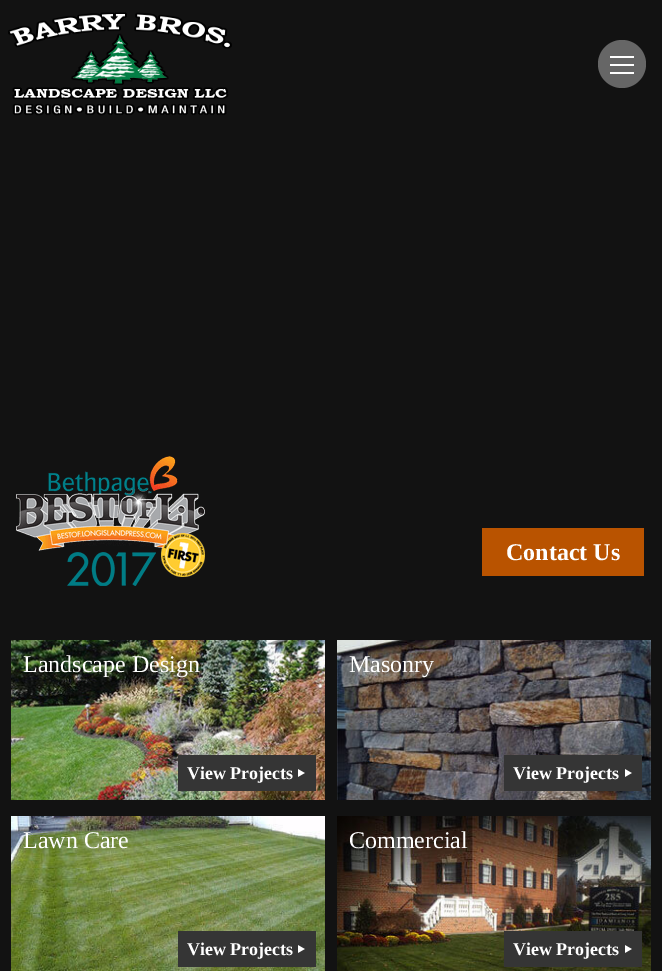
%!PS
<< /PageSize [662 971] >> setpagedevice
/fl/fill load def
/co { dup -16 bitshift 255 div exch dup -8 bitshift 255 and 255 div exch 255 and 255 div setrgbcolor } def
/fn { [ exch dup neg 0 0 3 -1 roll 0 0 ] selectfont } def
/tx { co fn moveto show } def
/bx { co rectfill } def
/ci { newpath 0 360 arc closepath } def
/im { 5 dict begin { /h /w /y /x /name } { exch def } forall
  gsave x y translate w h scale
  w h 8 [w 0 0 h 0 0] name (r) file false 3 colorimage grestore end } def
0 971 translate 1 -1 scale
4 setmiterlimit
0 0 662 971 16#121212 bx
(media/1.raw) 8 12 224 104 im
16#666666 co
622 64 24 ci fl
610 64 24 2 16#FFFFFF bx
610 56 24 2 16#FFFFFF bx
610 72 24 2 16#FFFFFF bx
(media/2.raw) 16 456 189 130 im
482 528 162 48 16#B95300 bx
(media/3.raw) 11 640 314 160 im
178 755 138 36 16#353535 bx
(media/4.raw) 298 769 7 8 im
(media/5.raw) 337 640 314 160 im
504 755 138 36 16#353535 bx
(media/4.raw) 625 769 7 8 im
(media/6.raw) 11 816 314 155 im
178 931 138 36 16#353535 bx
(media/4.raw) 298 945 7 8 im
(media/7.raw) 337 816 314 155 im
504 931 138 36 16#353535 bx
(media/4.raw) 625 945 7 8 im
(Contact Us) 506 560 /LiberationSerif-Bold 24 16#FFFFFF tx
(Landscape Design) 23 672 /LiberationSerif-Regular 24 16#FFFFFF tx
(View Projects) 187 779 /LiberationSerif-Bold 18 16#FFFFFF tx
(Masonry) 349 672 /LiberationSerif-Regular 24 16#FFFFFF tx
(View Projects) 513 779 /LiberationSerif-Bold 18 16#FFFFFF tx
(Lawn Care) 23 848 /LiberationSerif-Regular 24 16#FFFFFF tx
(View Projects) 187 955 /LiberationSerif-Bold 18 16#FFFFFF tx
(Commercial) 349 848 /LiberationSerif-Regular 24 16#FFFFFF tx
(View Projects) 513 955 /LiberationSerif-Bold 18 16#FFFFFF tx
showpage
